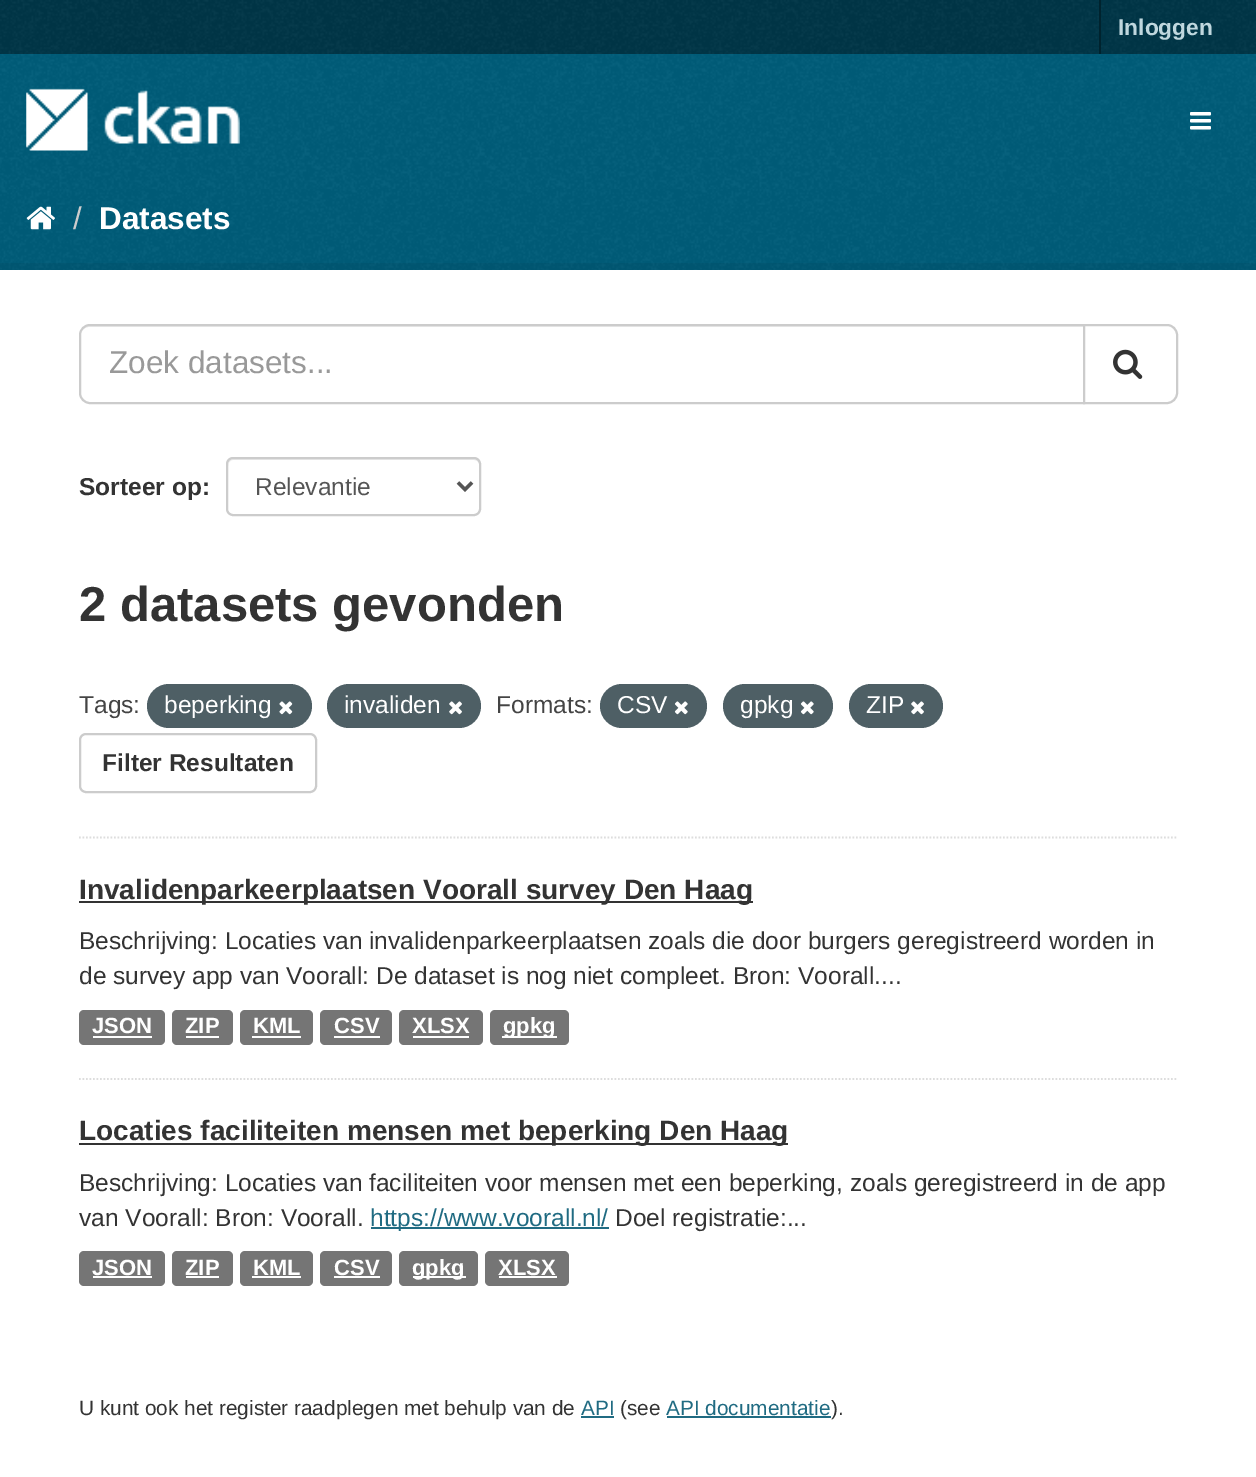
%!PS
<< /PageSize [1256 1477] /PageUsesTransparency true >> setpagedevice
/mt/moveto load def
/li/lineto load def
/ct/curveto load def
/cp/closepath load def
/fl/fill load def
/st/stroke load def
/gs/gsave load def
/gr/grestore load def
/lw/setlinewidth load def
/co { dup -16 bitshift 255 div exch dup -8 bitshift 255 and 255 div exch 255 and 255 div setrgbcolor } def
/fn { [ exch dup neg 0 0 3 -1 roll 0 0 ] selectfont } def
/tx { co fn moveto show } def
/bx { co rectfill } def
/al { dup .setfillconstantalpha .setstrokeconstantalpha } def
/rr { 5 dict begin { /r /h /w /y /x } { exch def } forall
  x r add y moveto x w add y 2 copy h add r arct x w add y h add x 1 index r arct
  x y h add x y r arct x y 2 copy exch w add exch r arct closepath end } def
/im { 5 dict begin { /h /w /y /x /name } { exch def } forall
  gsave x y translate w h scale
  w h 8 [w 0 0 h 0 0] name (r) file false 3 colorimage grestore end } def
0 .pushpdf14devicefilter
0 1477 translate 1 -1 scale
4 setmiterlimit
0 0 1256 1477 16#005D7A bx
(media/1.raw) 0 189 1256 81 im
0 0 1256 54 16#003647 bx
(media/2.raw) 0 0 1256 54 im
1099 0 2 54 16#00232E bx
(media/3.raw) 0 54 1256 135 im
(media/4.raw) 26 88 214 63 im
(media/5.raw) 1190 112 21 18 im
(media/6.raw) 26 206 29 24 im
0.05 al
16#000000 co
7 lw
-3.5 266.5 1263 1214 rectstroke
1 al
0 270 1256 1207 16#FFFFFF bx
16#DDDDDD co
1.8 lw
[1.75 1.75] 0 setdash
79 837.5 mt 1178 837.5 li st
16#ECECEC co
89 327 mt 1083 327 li 1083 326 li 90 326 li 87 326 85 327 83 329 ct 85 328 87 327 89 327 ct cp fl
16#CCCCCC co
2 lw
[] 0 setdash
90 325 mt 1084 325 li 1084 403 li 90 403 li 84.5 403 80 398.5 80 393 ct 80 335 li 80 329.5 84.5 325 90 325 ct cp st
16#FFFFFF co
1084 325 mt 1167 325 li 1172.5 325 1177 329.5 1177 335 ct 1177 393 li 1177 398.5 1172.5 403 1167 403 ct 1084 403 li cp gs fl gr
16#CCCCCC co
st
(media/7.raw) 1113 349 30 30 im
16#ECECEC co
233 460 mt 474 460 li 477 460 480 463 480 466 ct 480 463 479 459 475 459 ct 233 459 li 229 459 228 463 228 466 ct 228 463 230 460 233 460 ct cp fl
16#CCCCCC co
227 458 253 57 6 rr st
16#555555 co
3.5 lw
458 482.5 mt 465 489.5 li 472 482.5 li st
16#4E5F65 co
147 684 165 44 22 rr fl
(media/8.raw) 279 701 14 14 im
327 684 154 44 22 rr fl
(media/9.raw) 449 701 13 14 im
600 684 107 44 22 rr fl
(media/10.raw) 674 701 14 14 im
723 684 110 44 22 rr fl
(media/10.raw) 800 701 14 14 im
849 684 94 44 22 rr fl
(media/11.raw) 911 701 13 14 im
16#CCCCCC co
2 lw
80 734 236 58 6 rr st
16#DDDDDD co
1.8 lw
[1.75 1.75] 0 setdash
79 1079 mt 1178 1079 li st
79 901 674 2 16#333333 bx
16#757575 co
79 1010 86 35 5 rr fl
93 1036 59 2 16#FFFFFF bx
16#757575 co
172 1010 61 35 5 rr fl
186 1036 33 2 16#FFFFFF bx
16#757575 co
240 1010 73 35 5 rr fl
252 1036 49 2 16#FFFFFF bx
16#757575 co
320 1010 72 35 5 rr fl
334 1036 46 2 16#FFFFFF bx
16#757575 co
399 1010 84 35 5 rr fl
413 1036 56 2 16#FFFFFF bx
16#757575 co
490 1010 79 35 5 rr fl
502 1036 55 2 16#FFFFFF bx
79 1143 709 2 16#333333 bx
371 1227 238 2 16#206B82 bx
16#757575 co
79 1251 86 35 5 rr fl
93 1276 59 2 16#FFFFFF bx
16#757575 co
172 1251 61 35 5 rr fl
186 1276 33 2 16#FFFFFF bx
16#757575 co
240 1251 73 35 5 rr fl
252 1276 49 2 16#FFFFFF bx
16#757575 co
320 1251 72 35 5 rr fl
334 1276 46 2 16#FFFFFF bx
16#757575 co
399 1251 79 35 5 rr fl
413 1276 53 2 16#FFFFFF bx
16#757575 co
485 1251 84 35 5 rr fl
499 1276 58 2 16#FFFFFF bx
581 1416 33 2 16#206B82 bx
667 1416 164 2 16#206B82 bx
(Inloggen) 1118 35 /LiberationSans-Bold 22.75 16#BFD7DE tx
(/) 73 229 /LiberationSans-Regular 31.5 16#CCCCCC tx
(Datasets) 99 229 /LiberationSans-Bold 31.5 16#FFFFFF tx
(Zoek datasets...) 109 373 /LiberationSans-Regular 31.5 16#999999 tx
(Sorteer op:) 79 495 /LiberationSans-Bold 24.5 16#333333 tx
(Relevantie) 255 495 /LiberationSans-Regular 24.5 16#555555 tx
(2 datasets gevonden) 79 621 /LiberationSans-Bold 49 16#333333 tx
(Tags:) 79 713 /LiberationSans-Regular 24.5 16#444444 tx
(beperking) 164 713 /LiberationSans-Regular 24.5 16#FFFFFF tx
(invaliden) 344 713 /LiberationSans-Regular 24.5 16#FFFFFF tx
(Formats:) 496 713 /LiberationSans-Regular 24.5 16#444444 tx
(CSV) 617 713 /LiberationSans-Regular 24.5 16#FFFFFF tx
(gpkg) 740 713 /LiberationSans-Regular 24.5 16#FFFFFF tx
(ZIP) 866 713 /LiberationSans-Regular 24.5 16#FFFFFF tx
(Filter Resultaten) 102 771 /LiberationSans-Bold 24.5 16#333333 tx
(Invalidenparkeerplaatsen Voorall survey Den Haag) 79 899 /LiberationSans-Bold 28 16#333333 tx
(Beschrijving: Locaties van invalidenparkeerplaatsen zoals die door burgers geregistreerd worden in) 79 949 /LiberationSans-Regular 24.5 16#333333 tx
(de survey app van Voorall: De dataset is nog niet compleet. Bron: Voorall....) 79 984 /LiberationSans-Regular 24.5 16#333333 tx
(JSON) 92 1033 /LiberationSans-Bold 22 16#FFFFFF tx
(ZIP) 185 1033 /LiberationSans-Bold 22 16#FFFFFF tx
(KML) 253 1033 /LiberationSans-Bold 22 16#FFFFFF tx
(CSV) 334 1033 /LiberationSans-Bold 22 16#FFFFFF tx
(XLSX) 412 1033 /LiberationSans-Bold 22 16#FFFFFF tx
(gpkg) 503 1033 /LiberationSans-Bold 22 16#FFFFFF tx
(Locaties faciliteiten mensen met beperking Den Haag) 79 1140 /LiberationSans-Bold 28 16#333333 tx
(Beschrijving: Locaties van faciliteiten voor mensen met een beperking, zoals geregistreerd in de app) 79 1191 /LiberationSans-Regular 24.5 16#333333 tx
(van Voorall: Bron: Voorall.) 79 1226 /LiberationSans-Regular 24.5 16#333333 tx
(https://www.voorall.nl/) 370 1226 /LiberationSans-Regular 24.5 16#206B82 tx
(Doel registratie:...) 615 1226 /LiberationSans-Regular 24.5 16#333333 tx
(JSON) 92 1275 /LiberationSans-Bold 22 16#FFFFFF tx
(ZIP) 185 1275 /LiberationSans-Bold 22 16#FFFFFF tx
(KML) 253 1275 /LiberationSans-Bold 22 16#FFFFFF tx
(CSV) 334 1275 /LiberationSans-Bold 22 16#FFFFFF tx
(gpkg) 412 1275 /LiberationSans-Bold 22 16#FFFFFF tx
(XLSX) 498 1275 /LiberationSans-Bold 22 16#FFFFFF tx
(U kunt ook het register raadplegen met behulp van de) 79 1415 /LiberationSans-Regular 20.8 16#333333 tx
(API) 581 1415 /LiberationSans-Regular 20.8 16#206B82 tx
(\(see) 620 1415 /LiberationSans-Regular 20.8 16#333333 tx
(API documentatie) 666 1415 /LiberationSans-Regular 20.8 16#206B82 tx
(\).) 831 1415 /LiberationSans-Regular 20.8 16#333333 tx
.poppdf14devicefilter showpage
